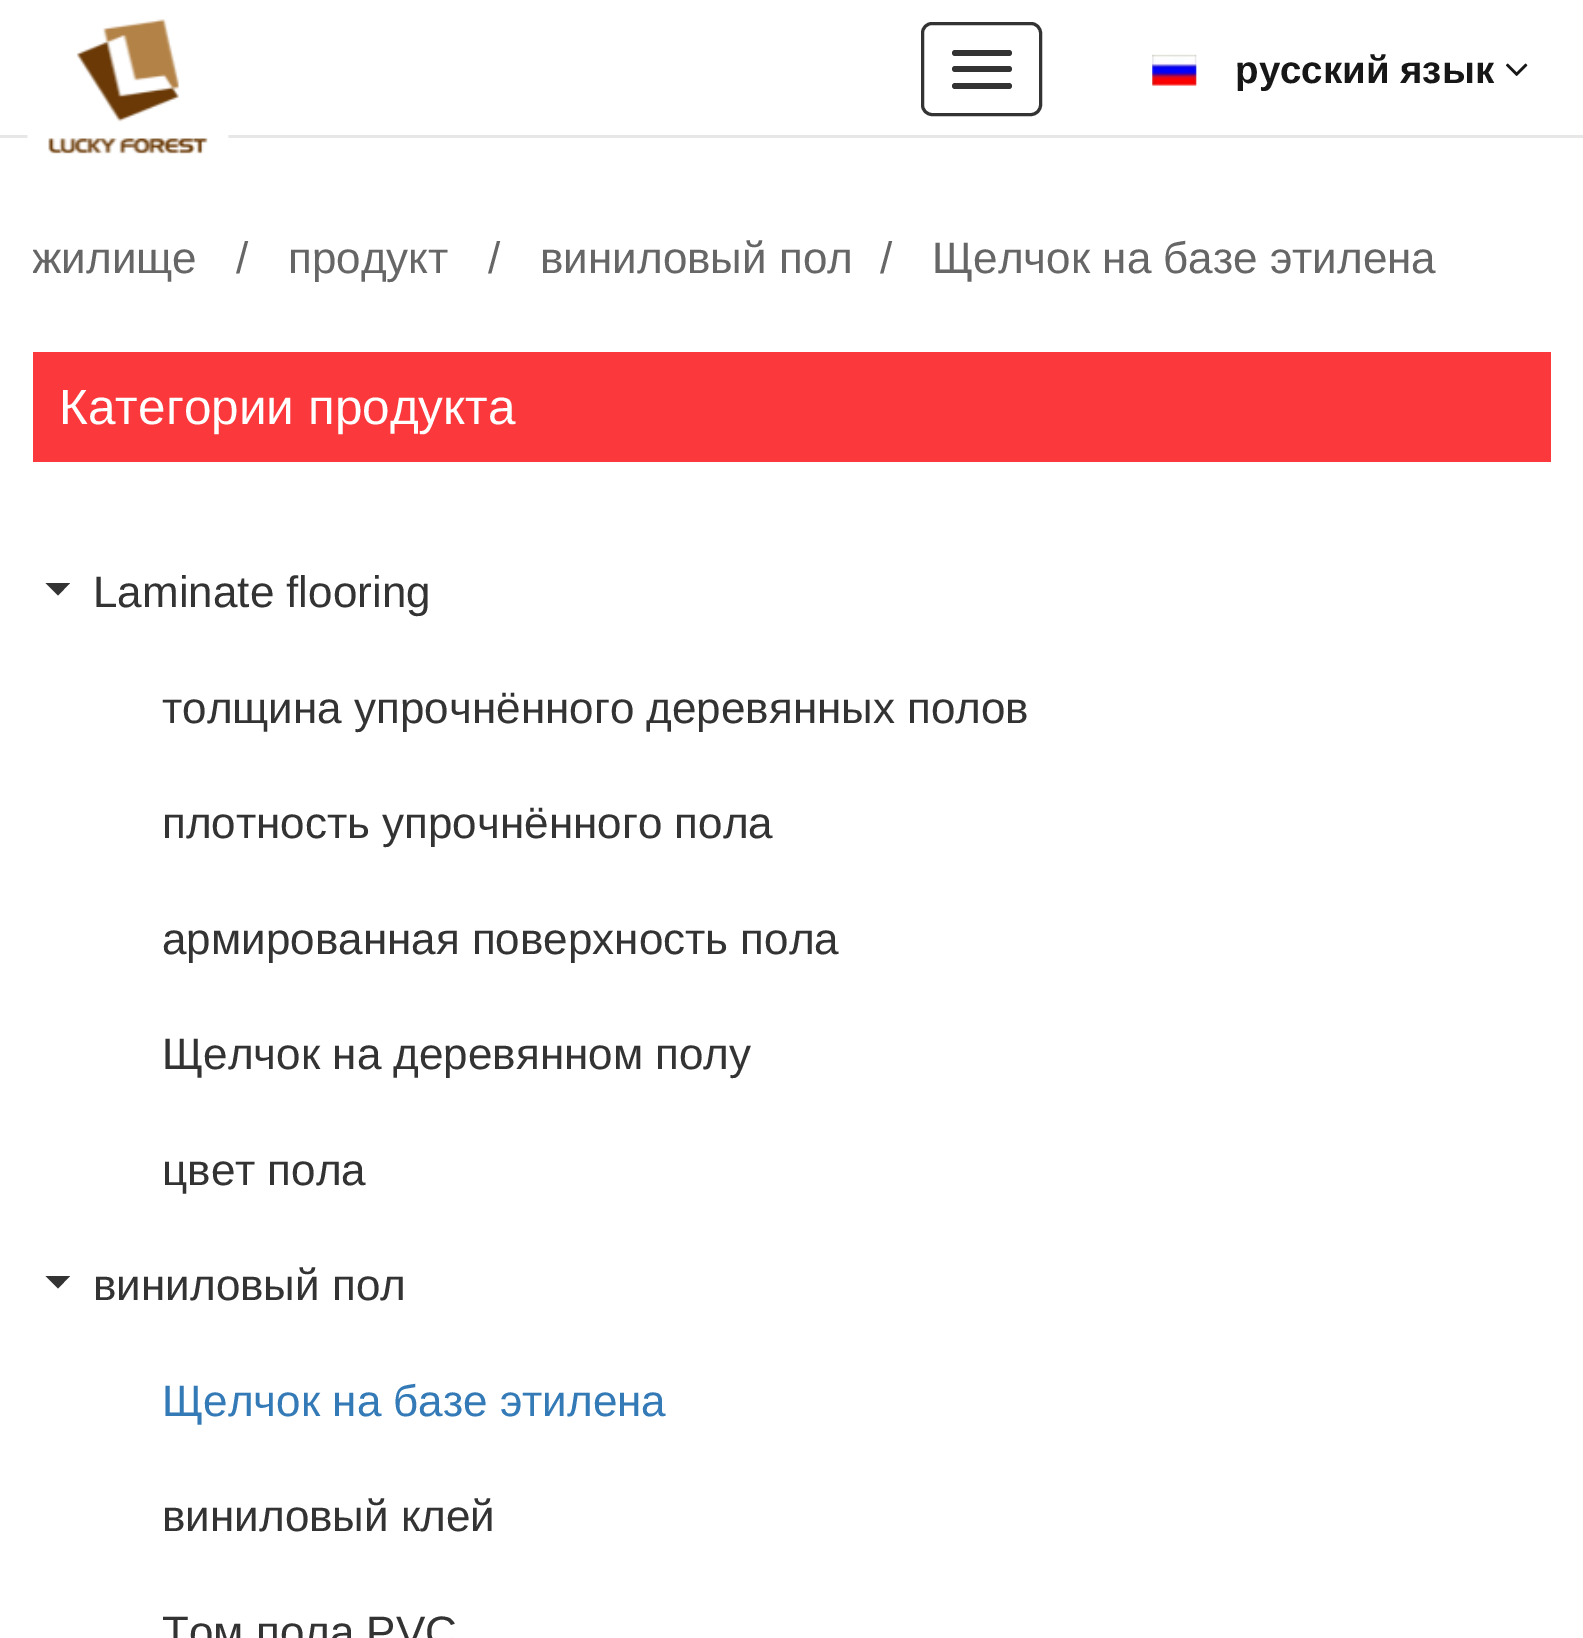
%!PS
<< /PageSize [1583 1638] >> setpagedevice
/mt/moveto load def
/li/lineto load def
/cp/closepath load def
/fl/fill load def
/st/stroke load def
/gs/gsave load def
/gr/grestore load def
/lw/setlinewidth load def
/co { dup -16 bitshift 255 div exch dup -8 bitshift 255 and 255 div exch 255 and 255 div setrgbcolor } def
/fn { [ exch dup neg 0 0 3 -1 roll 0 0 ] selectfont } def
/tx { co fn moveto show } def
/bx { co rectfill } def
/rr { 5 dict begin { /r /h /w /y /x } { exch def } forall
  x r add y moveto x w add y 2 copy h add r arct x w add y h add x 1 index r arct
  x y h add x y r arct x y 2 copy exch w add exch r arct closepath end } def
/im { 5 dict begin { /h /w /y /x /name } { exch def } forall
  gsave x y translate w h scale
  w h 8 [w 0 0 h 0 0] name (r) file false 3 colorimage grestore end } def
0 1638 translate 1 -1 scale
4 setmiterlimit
0 0 1583 1638 16#FFFFFF bx
0 135 1583 3 16#E7E7E7 bx
(media/1.raw) 27 19 202 135 im
16#333333 co
3 lw
922.5 23.5 118 91 9.5 rr st
952 50 60 6 3 rr fl
952 66 60 6 3 rr fl
952 83 60 6 3 rr fl
(media/2.raw) 1152 54 45 32 im
(media/3.raw) 1506 63 22 13 im
33 352 1518 110 16#FB383B bx
16#333333 co
70 583 mt 58 595.5 li 45.5 583 li cp fl
70 1276 mt 58 1288.5 li 45.5 1276 li cp fl
(русский язык) 1235 83 /LiberationSans-Bold 38.5 16#171717 tx
gs
33 228 1518 64 rectclip
(жилище) 32 273 /LiberationSans-Regular 44 16#666666 tx
gr
(/) 236 273 /LiberationSans-Regular 44 16#666666 tx
(продукт) 288 273 /LiberationSans-Regular 44 16#666666 tx
(/) 488 273 /LiberationSans-Regular 44 16#666666 tx
(виниловый пол) 540 273 /LiberationSans-Regular 44 16#666666 tx
(/) 880 273 /LiberationSans-Regular 44 16#666666 tx
(Щелчок на базе этилена) 932 273 /LiberationSans-Regular 44 16#666666 tx
(Категории продукта) 59 424 /LiberationSans-Regular 49.5 16#FFFFFF tx
(Laminate flooring) 93 607 /LiberationSans-Regular 44 16#333333 tx
(толщина упрочнённого деревянных полов) 162 723 /LiberationSans-Regular 44 16#333333 tx
(плотность упрочнённого пола) 162 838 /LiberationSans-Regular 44 16#333333 tx
(армированная поверхность пола) 162 954 /LiberationSans-Regular 44 16#333333 tx
(Щелчок на деревянном полу) 162 1069 /LiberationSans-Regular 44 16#333333 tx
(цвет пола) 162 1185 /LiberationSans-Regular 44 16#333333 tx
(виниловый пол) 93 1300 /LiberationSans-Regular 44 16#333333 tx
(Щелчок на базе этилена) 162 1416 /LiberationSans-Regular 44 16#337AB7 tx
(виниловый клей) 162 1531 /LiberationSans-Regular 44 16#333333 tx
(Том пола PVC) 162 1647 /LiberationSans-Regular 44 16#333333 tx
showpage
